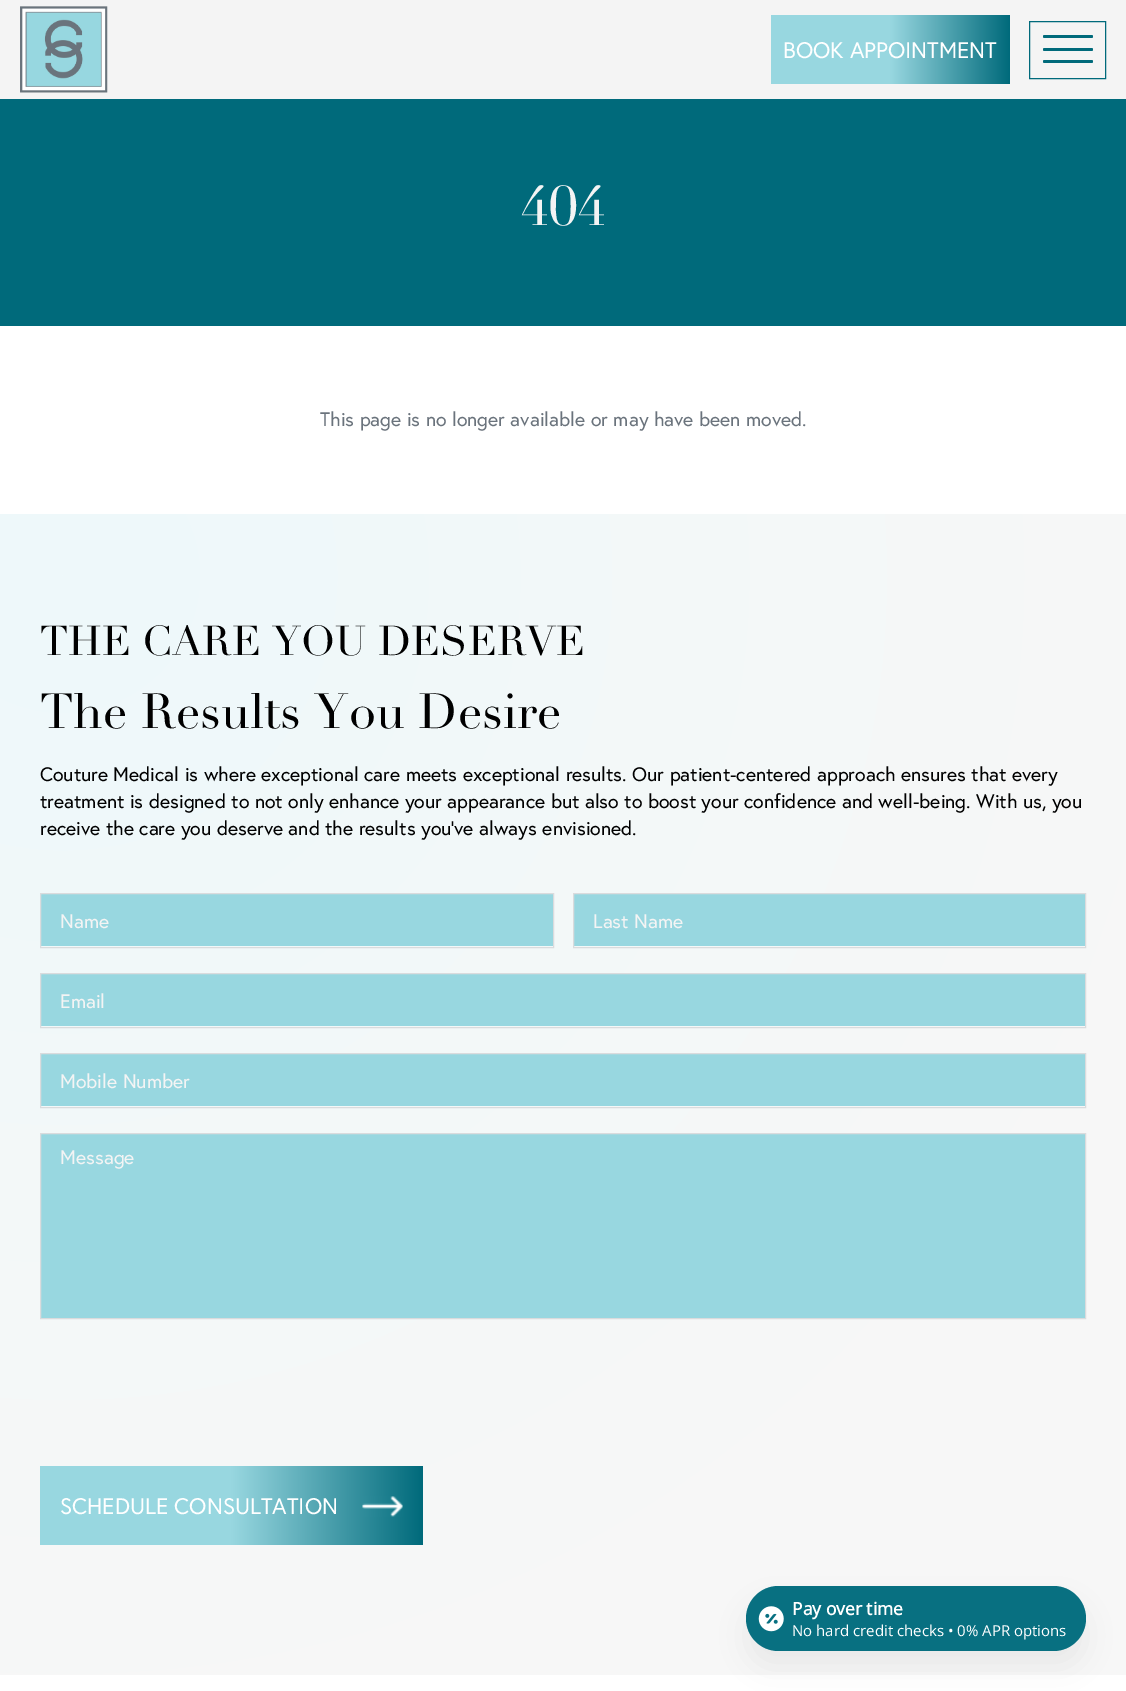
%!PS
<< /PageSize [1126 1691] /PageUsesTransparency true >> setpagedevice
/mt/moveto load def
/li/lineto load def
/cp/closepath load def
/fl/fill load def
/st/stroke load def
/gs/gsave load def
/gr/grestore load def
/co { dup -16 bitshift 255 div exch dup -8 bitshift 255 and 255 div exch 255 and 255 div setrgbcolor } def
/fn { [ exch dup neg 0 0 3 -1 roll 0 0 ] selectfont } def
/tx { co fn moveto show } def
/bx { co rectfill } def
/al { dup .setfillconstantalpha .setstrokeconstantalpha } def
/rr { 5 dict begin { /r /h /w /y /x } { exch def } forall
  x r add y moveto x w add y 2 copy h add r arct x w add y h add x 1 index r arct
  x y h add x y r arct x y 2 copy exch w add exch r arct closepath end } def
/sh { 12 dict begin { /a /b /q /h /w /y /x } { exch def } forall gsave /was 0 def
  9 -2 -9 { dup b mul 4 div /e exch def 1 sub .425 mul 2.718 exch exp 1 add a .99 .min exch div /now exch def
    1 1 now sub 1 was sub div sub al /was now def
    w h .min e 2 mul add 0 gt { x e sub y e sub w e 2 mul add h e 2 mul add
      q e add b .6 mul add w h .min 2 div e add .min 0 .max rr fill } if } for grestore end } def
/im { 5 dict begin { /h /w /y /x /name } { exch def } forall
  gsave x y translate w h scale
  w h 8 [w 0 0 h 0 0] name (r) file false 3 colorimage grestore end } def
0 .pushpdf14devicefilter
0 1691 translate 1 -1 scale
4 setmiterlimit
0 0 1126 1691 16#FFFFFF bx
0 0 1126 99 16#F4F4F4 bx
(media/1.raw) 20 6 88 87 im
gs 771 15 mt 1010 15 li 1010 84 li 771 84 li cp clip newpath
<< /ShadingType 2 /ColorSpace /DeviceRGB /Coords [771 49 1010 49] /Extend [true true] /Function << /FunctionType 3 /Domain [0 1] /Functions [<< /FunctionType 2 /Domain [0 1] /C0 [.596 .843 .878] /C1 [.596 .843 .878] /N 1 >> << /FunctionType 2 /Domain [0 1] /C0 [.596 .843 .878] /C1 [0 .416 .482] /N 1 >>] /Bounds [.5] /Encode [0 1 0 1] >> >> shfill gr
16#006A7B co
1029.5 21.5 76 57 rectstroke
1043 35 50 3 1.5 rr fl
1043 48 50 3 1.5 rr fl
1043 60 50 3 1.5 rr fl
0 99 1126 227 16#006A7B bx
gs 0 514 mt 1126 514 li 1126 1675 li 0 1675 li cp clip newpath 63 576 translate 1099 1099 scale
<< /ShadingType 3 /ColorSpace /DeviceRGB /Coords [0 0 0 0 0 1] /Extend [true true] /Function << /FunctionType 2 /Domain [0 1] /C0 [.933 .976 .984] /C1 [.969 .969 .969] /N 1 >> >> shfill gr
41 894 512 52 16#98D7E0 bx
16#DADBDD co
40.5 893.5 513 54 rectstroke
574 894 511 52 16#98D7E0 bx
16#DADBDD co
573.5 893.5 512 54 rectstroke
41 974 1044 52 16#98D7E0 bx
16#DADBDD co
40.5 973.5 1045 54 rectstroke
41 1054 1044 52 16#98D7E0 bx
16#DADBDD co
40.5 1053.5 1045 54 rectstroke
16#98D7E0 co
40.5 1133.5 mt 1085.5 1133.5 li 1085.5 1318.5 li 40.5 1318.5 li cp gs fl gr
16#DADBDD co
st
gs 40 1466 mt 423 1466 li 423 1545 li 40 1545 li cp clip newpath
<< /ShadingType 2 /ColorSpace /DeviceRGB /Coords [40 1506 423 1506] /Extend [true true] /Function << /FunctionType 3 /Domain [0 1] /Functions [<< /FunctionType 2 /Domain [0 1] /C0 [.596 .843 .878] /C1 [.596 .843 .878] /N 1 >> << /FunctionType 2 /Domain [0 1] /C0 [.596 .843 .878] /C1 [0 .416 .482] /N 1 >>] /Bounds [.5] /Encode [0 1 0 1] >> >> shfill gr
(media/2.raw) 362 1496 41 21 im
16#000000 co
746 1603 340 65 32.5 15.5 .05 sh
16#087081 co
746 1586 340 65 32.5 rr fl
(media/3.raw) 758 1606 26 26 im
(BOOK APPOINTMENT) 783 58 /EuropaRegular-Regular 22.5 16#FFFFFF tx
(404) 520 225 /Didot-Regular 55 16#F4F4F4 tx
(This page is no longer available or may have been moved.) 320 426 /EuropaRegular-Regular 19.5 16#6A737C tx
(THE CARE YOU DESERVE) 40 655 /Didot-Regular 41.1 16#000000 tx
(The Results You Desire) 40 728 /Didot-Regular 48.6 16#000000 tx
(Couture Medical is where exceptional care meets exceptional results. Our patient-centered approach ensures that every) 40 781 /EuropaRegular-Regular 19.5 16#000000 tx
(treatment is designed to not only enhance your appearance but also to boost your confidence and well-being. With us, you) 40 808 /EuropaRegular-Regular 19.5 16#000000 tx
(receive the care you deserve and the results you’ve always envisioned.) 40 835 /EuropaRegular-Regular 19.5 16#000000 tx
(Name) 60 928 /EuropaRegular-Regular 19.5 16#F4F4F4 tx
(Last Name) 593 928 /EuropaRegular-Regular 19.5 16#F4F4F4 tx
(Email) 60 1008 /EuropaRegular-Regular 19.5 16#F4F4F4 tx
(Mobile Number) 60 1088 /EuropaRegular-Regular 19.5 16#F4F4F4 tx
(Message) 60 1164 /EuropaRegular-Regular 19.5 16#F4F4F4 tx
(SCHEDULE CONSULTATION) 60 1514 /EuropaRegular-Regular 22.5 16#FFFFFF tx
(Pay over time) 792 1615 /OpenSans-Bold 17.5 16#FFFFFF tx
(No hard credit checks • 0% APR options) 792 1636 /OpenSans-Regular 15 16#FFFFFF tx
.poppdf14devicefilter showpage
